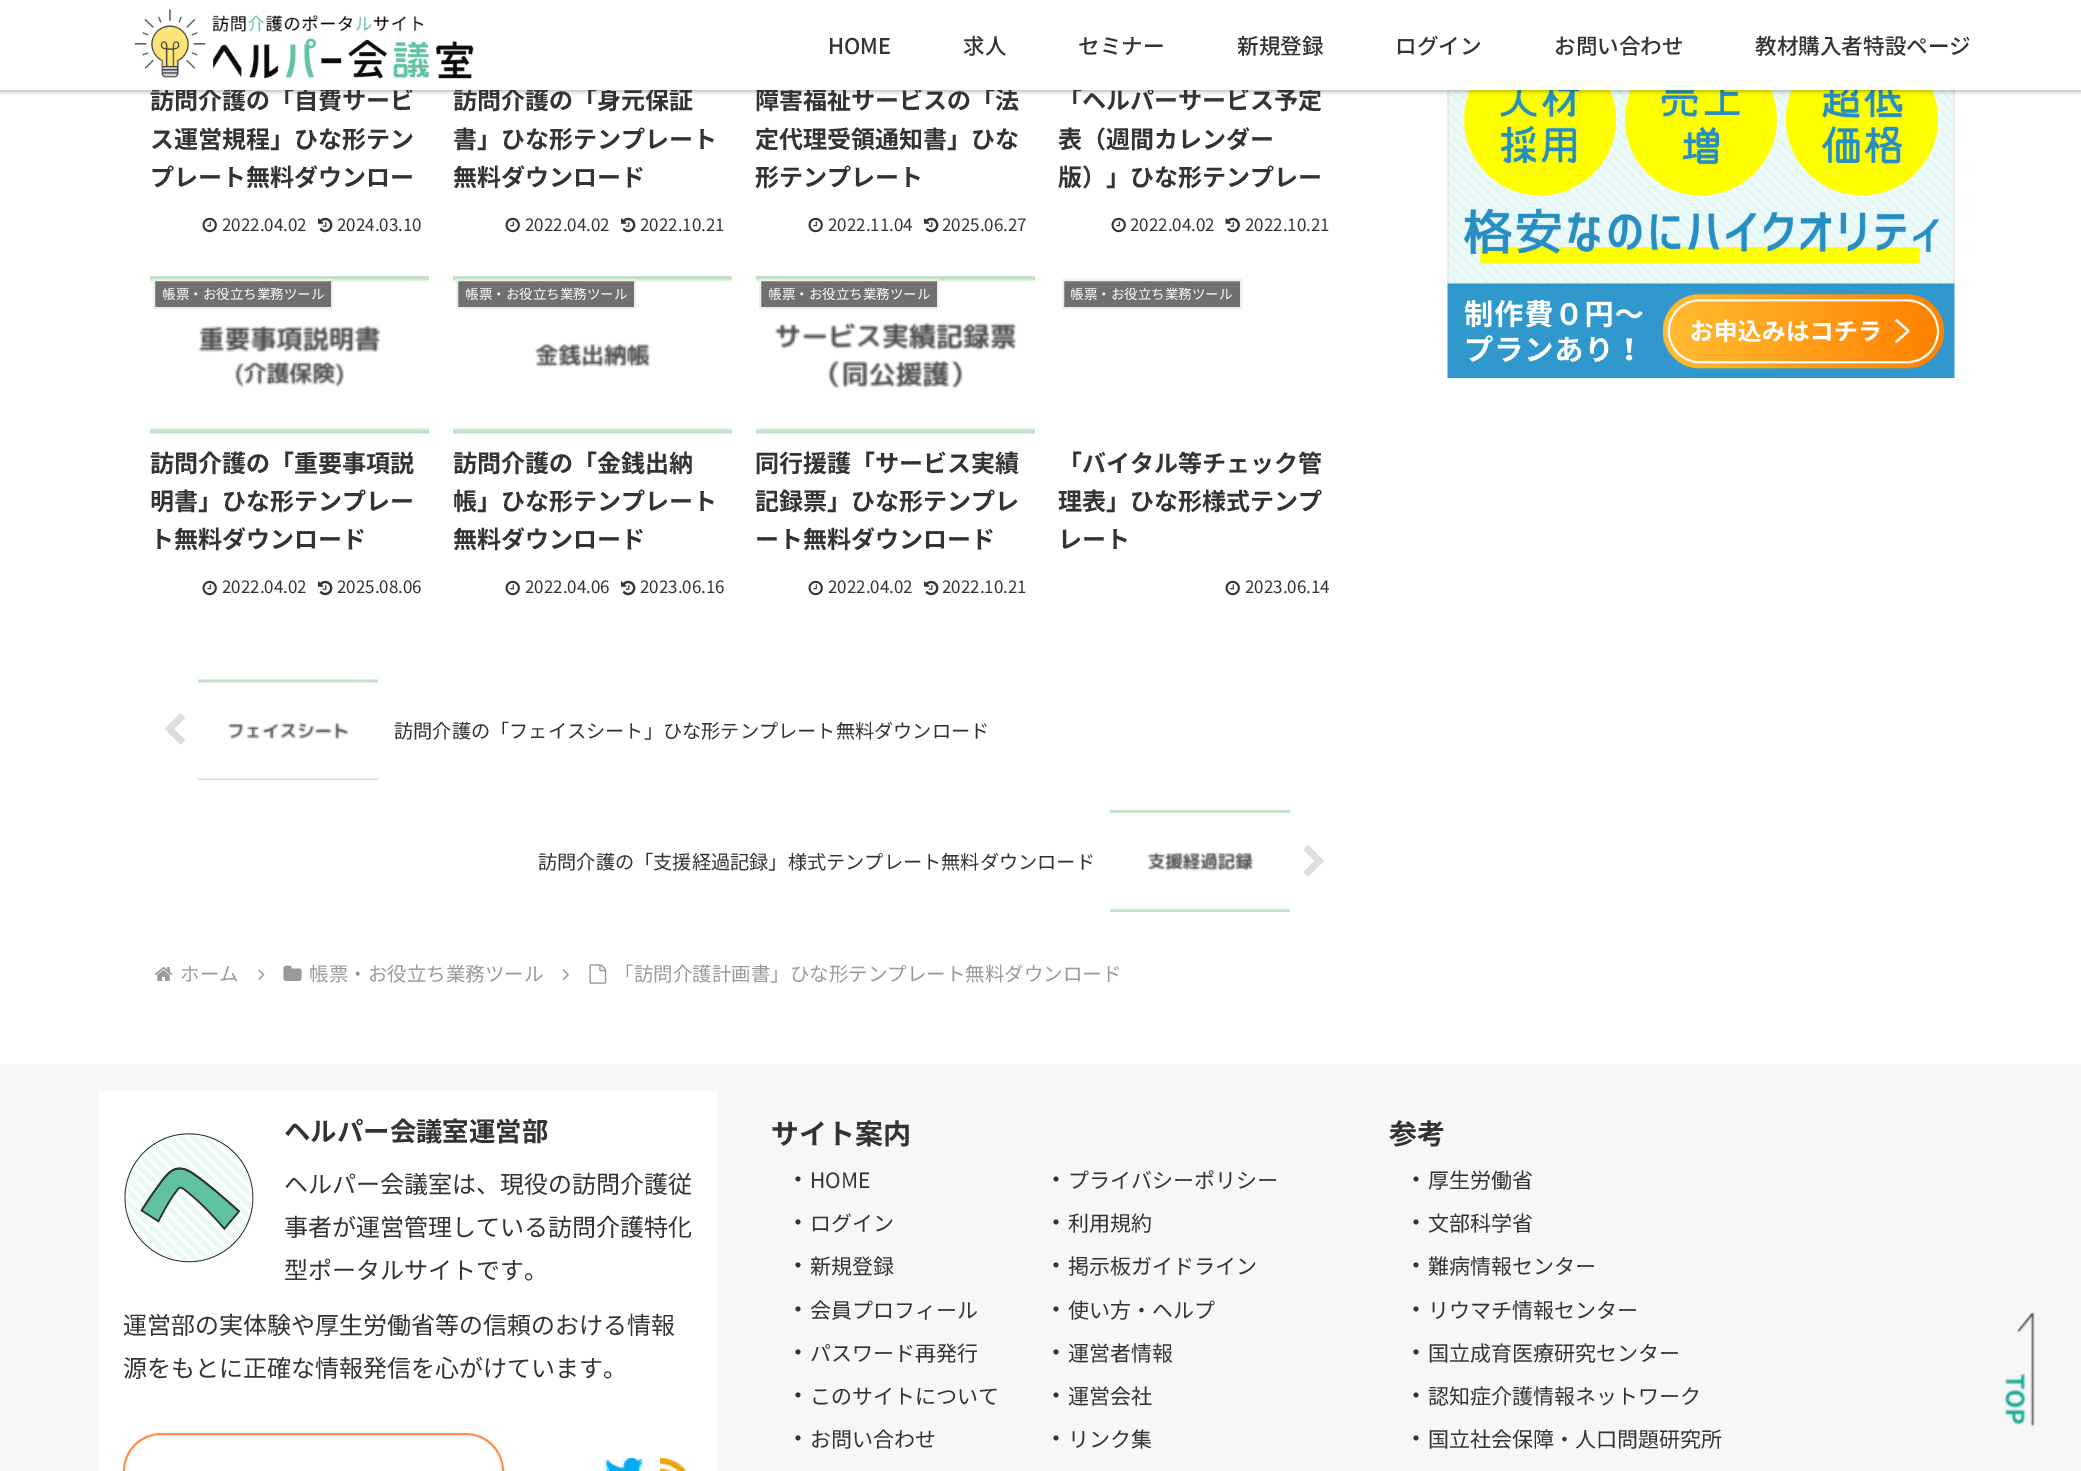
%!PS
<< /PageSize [2081 1471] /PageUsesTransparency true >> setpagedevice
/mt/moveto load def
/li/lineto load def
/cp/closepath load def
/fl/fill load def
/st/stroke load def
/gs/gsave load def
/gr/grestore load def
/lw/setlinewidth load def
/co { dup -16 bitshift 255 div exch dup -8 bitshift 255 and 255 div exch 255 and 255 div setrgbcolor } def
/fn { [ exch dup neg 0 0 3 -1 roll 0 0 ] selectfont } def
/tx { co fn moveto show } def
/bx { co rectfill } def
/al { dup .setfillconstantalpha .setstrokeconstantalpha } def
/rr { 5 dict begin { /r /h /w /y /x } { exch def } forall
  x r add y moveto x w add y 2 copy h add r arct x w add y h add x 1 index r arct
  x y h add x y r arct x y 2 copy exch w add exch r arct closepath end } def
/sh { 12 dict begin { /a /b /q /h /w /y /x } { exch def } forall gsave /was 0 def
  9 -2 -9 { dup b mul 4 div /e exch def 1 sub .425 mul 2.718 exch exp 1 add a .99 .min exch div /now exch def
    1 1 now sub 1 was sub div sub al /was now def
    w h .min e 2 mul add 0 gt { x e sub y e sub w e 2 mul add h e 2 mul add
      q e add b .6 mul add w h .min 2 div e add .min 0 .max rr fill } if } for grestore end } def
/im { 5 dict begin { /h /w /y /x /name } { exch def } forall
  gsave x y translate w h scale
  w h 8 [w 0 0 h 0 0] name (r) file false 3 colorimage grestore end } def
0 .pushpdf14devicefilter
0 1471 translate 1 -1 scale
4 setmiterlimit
0 0 2081 1471 16#FFFFFF bx
(media/17.raw) 1447 90 508 288 im
16#000000 co
0 2 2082 90 0 2 .25 sh
(media/2.raw) 202 217 15 16 im
(media/3.raw) 318 217 15 16 im
(media/2.raw) 505 217 15 16 im
(media/3.raw) 621 217 15 16 im
(media/2.raw) 808 217 15 16 im
(media/3.raw) 924 217 15 16 im
(media/2.raw) 1111 217 15 16 im
(media/4.raw) 1225 217 15 16 im
(media/5.raw) 150 276 279 158 im
0.7 al
16#333333 co
154 280 mt 332 280 li 332 308 li 154 308 li cp fl
1 al
16#EEEEEE co
2 lw
154 280 mt 332 280 li 332 308 li 154 308 li cp st
(media/2.raw) 202 580 15 16 im
(media/3.raw) 318 580 15 16 im
(media/6.raw) 453 276 279 158 im
0.7 al
16#333333 co
457 280 mt 635 280 li 635 308 li 457 308 li cp fl
1 al
16#EEEEEE co
457 280 mt 635 280 li 635 308 li 457 308 li cp st
(media/2.raw) 505 580 15 16 im
(media/3.raw) 621 580 15 16 im
(media/7.raw) 756 276 279 158 im
0.7 al
16#333333 co
760 280 mt 938 280 li 938 308 li 760 308 li cp fl
1 al
16#EEEEEE co
760 280 mt 938 280 li 938 308 li 760 308 li cp st
(media/2.raw) 808 580 15 16 im
(media/3.raw) 924 580 15 16 im
16#707070 co
1063 280 mt 1241 280 li 1241 308 li 1063 308 li cp gs fl gr
16#EEEEEE co
st
(media/2.raw) 1225 580 15 16 im
(media/8.raw) 165 713 20 32 im
(media/9.raw) 198 679 180 101 im
(media/10.raw) 1110 810 180 102 im
(media/11.raw) 1303 845 21 32 im
(media/12.raw) 154 967 19 14 im
(media/13.raw) 258 969 7 11 im
(media/14.raw) 283 965 19 16 im
(media/15.raw) 562 969 7 12 im
(media/16.raw) 589 964 18 20 im
0 1064 2081 407 16#F7F7F7 bx
99 1091 618 380 16#FFFFFF bx
(media/18.raw) 124 1133 130 130 im
16#FF914D co
124 1434 379 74 37 rr st
(media/19.raw) 605 1458 39 13 im
(media/20.raw) 660 1458 28 13 im
(media/21.raw) 2005 1312 30 115 im
(訪問介護の「自費サービ) 150 109 /NotoSansJP-Bold 24 16#333333 tx
(ス運営規程」ひな形テン) 150 148 /NotoSansJP-Bold 24 16#333333 tx
(プレート無料ダウンロー) 150 186 /NotoSansJP-Bold 24 16#333333 tx
(2022.04.02) 222 231 /NotoSansJP-Regular 17 16#333333 tx
(2024.03.10) 337 231 /NotoSansJP-Regular 17 16#333333 tx
(訪問介護の「身元保証) 453 109 /NotoSansJP-Bold 24 16#333333 tx
(書」ひな形テンプレート) 453 148 /NotoSansJP-Bold 24 16#333333 tx
(無料ダウンロード) 453 186 /NotoSansJP-Bold 24 16#333333 tx
(2022.04.02) 525 231 /NotoSansJP-Regular 17 16#333333 tx
(2022.10.21) 640 231 /NotoSansJP-Regular 17 16#333333 tx
(障害福祉サービスの「法) 755 109 /NotoSansJP-Bold 24 16#333333 tx
(定代理受領通知書」ひな) 755 148 /NotoSansJP-Bold 24 16#333333 tx
(形テンプレート) 755 186 /NotoSansJP-Bold 24 16#333333 tx
(2022.11.04) 828 231 /NotoSansJP-Regular 17 16#333333 tx
(2025.06.27) 942 231 /NotoSansJP-Regular 17 16#333333 tx
(「ヘルパーサービス予定) 1058 109 /NotoSansJP-Bold 24 16#333333 tx
0 0 2081 90 16#FFFFFF bx
(教材購入者特設ページ) 1755 54 /NotoSansJP-Medium 21.6 16#333333 tx
(お問い合わせ) 1554 54 /NotoSansJP-Medium 21.6 16#333333 tx
(ログイン) 1395 54 /NotoSansJP-Medium 21.6 16#333333 tx
gs
1238 26 85 39 rectclip
(新規登録) 1237 54 /NotoSansJP-Medium 21.6 16#333333 tx
gr
(セミナー) 1078 54 /NotoSansJP-Medium 21.6 16#333333 tx
(求人) 963 54 /NotoSansJP-Medium 21.6 16#333333 tx
(HOME) 828 54 /NotoSansJP-Medium 21.6 16#333333 tx
(media/1.raw) 134 9 340 70 im
(表（週間カレンダー) 1058 148 /NotoSansJP-Bold 24 16#333333 tx
(版）」ひな形テンプレー) 1058 186 /NotoSansJP-Bold 24 16#333333 tx
(2022.04.02) 1130 231 /NotoSansJP-Regular 17 16#333333 tx
(2022.10.21) 1245 231 /NotoSansJP-Regular 17 16#333333 tx
(帳票・お役立ち業務ツール) 162 299 /NotoSansJP-Regular 13.5 16#FFFFFF tx
(訪問介護の「重要事項説) 150 472 /NotoSansJP-Bold 24 16#333333 tx
(明書」ひな形テンプレー) 150 510 /NotoSansJP-Bold 24 16#333333 tx
(ト無料ダウンロード) 150 548 /NotoSansJP-Bold 24 16#333333 tx
(2022.04.02) 222 593 /NotoSansJP-Regular 17 16#333333 tx
(2025.08.06) 337 593 /NotoSansJP-Regular 17 16#333333 tx
(帳票・お役立ち業務ツール) 465 299 /NotoSansJP-Regular 13.5 16#FFFFFF tx
(訪問介護の「金銭出納) 453 472 /NotoSansJP-Bold 24 16#333333 tx
(帳」ひな形テンプレート) 453 510 /NotoSansJP-Bold 24 16#333333 tx
(無料ダウンロード) 453 548 /NotoSansJP-Bold 24 16#333333 tx
(2022.04.06) 525 593 /NotoSansJP-Regular 17 16#333333 tx
(2023.06.16) 640 593 /NotoSansJP-Regular 17 16#333333 tx
(帳票・お役立ち業務ツール) 768 299 /NotoSansJP-Regular 13.5 16#FFFFFF tx
(同行援護「サービス実績) 755 472 /NotoSansJP-Bold 24 16#333333 tx
(記録票」ひな形テンプレ) 755 510 /NotoSansJP-Bold 24 16#333333 tx
(ート無料ダウンロード) 755 548 /NotoSansJP-Bold 24 16#333333 tx
(2022.04.02) 828 593 /NotoSansJP-Regular 17 16#333333 tx
(2022.10.21) 942 593 /NotoSansJP-Regular 17 16#333333 tx
(帳票・お役立ち業務ツール) 1070 299 /NotoSansJP-Regular 13.5 16#FFFFFF tx
(「バイタル等チェック管) 1058 472 /NotoSansJP-Bold 24 16#333333 tx
(理表」ひな形様式テンプ) 1058 510 /NotoSansJP-Bold 24 16#333333 tx
(レート) 1058 548 /NotoSansJP-Bold 24 16#333333 tx
(2023.06.14) 1245 593 /NotoSansJP-Regular 17 16#333333 tx
(訪問介護の「フェイスシート」ひな形テンプレート無料ダウンロード) 394 738 /NotoSansJP-Regular 19.2 16#333333 tx
(訪問介護の「支援経過記録」様式テンプレート無料ダウンロード) 538 869 /NotoSansJP-Regular 19.2 16#333333 tx
(ホーム) 180 981 /NotoSansJP-Regular 19.5 16#999999 tx
(帳票・お役立ち業務ツール) 309 981 /NotoSansJP-Regular 19.5 16#999999 tx
(「訪問介護計画書」ひな形テンプレート無料ダウンロード) 614 981 /NotoSansJP-Regular 19.5 16#999999 tx
(ヘルパー会議室運営部) 284 1141 /NotoSansJP-Bold 26.4 16#333333 tx
(ヘルパー会議室は、現役の訪問介護従) 284 1193 /NotoSansJP-Regular 24 16#333333 tx
(事者が運営管理している訪問介護特化) 284 1236 /NotoSansJP-Regular 24 16#333333 tx
(型ポータルサイトです。) 284 1279 /NotoSansJP-Regular 24 16#333333 tx
(運営部の実体験や厚生労働省等の信頼のおける情報) 123 1334 /NotoSansJP-Regular 24 16#333333 tx
(源をもとに正確な情報発信を心がけています。) 123 1377 /NotoSansJP-Regular 24 16#333333 tx
(サイト案内) 771 1144 /NotoSansJP-Bold 28 16#333333 tx
(・) 786 1188 /NotoSansJP-Regular 24 16#333333 tx
(HOME) 810 1188 /NotoSansJP-Regular 21 16#333333 tx
(・) 786 1231 /NotoSansJP-Regular 24 16#333333 tx
(ログイン) 810 1231 /NotoSansJP-Regular 21 16#333333 tx
(・) 786 1274 /NotoSansJP-Regular 24 16#333333 tx
(新規登録) 810 1274 /NotoSansJP-Regular 21 16#333333 tx
(・) 786 1318 /NotoSansJP-Regular 24 16#333333 tx
(会員プロフィール) 810 1318 /NotoSansJP-Regular 21 16#333333 tx
(・) 786 1361 /NotoSansJP-Regular 24 16#333333 tx
(パスワード再発行) 810 1361 /NotoSansJP-Regular 21 16#333333 tx
(・) 786 1404 /NotoSansJP-Regular 24 16#333333 tx
(このサイトについて) 810 1404 /NotoSansJP-Regular 21 16#333333 tx
(・) 786 1447 /NotoSansJP-Regular 24 16#333333 tx
(お問い合わせ) 810 1447 /NotoSansJP-Regular 21 16#333333 tx
(・) 1044 1188 /NotoSansJP-Regular 24 16#333333 tx
(プライバシーポリシー) 1068 1188 /NotoSansJP-Regular 21 16#333333 tx
(・) 1044 1231 /NotoSansJP-Regular 24 16#333333 tx
(利用規約) 1068 1231 /NotoSansJP-Regular 21 16#333333 tx
(・) 1044 1274 /NotoSansJP-Regular 24 16#333333 tx
(掲示板ガイドライン) 1068 1274 /NotoSansJP-Regular 21 16#333333 tx
(・) 1044 1318 /NotoSansJP-Regular 24 16#333333 tx
(使い方・ヘルプ) 1068 1318 /NotoSansJP-Regular 21 16#333333 tx
(・) 1044 1361 /NotoSansJP-Regular 24 16#333333 tx
(運営者情報) 1068 1361 /NotoSansJP-Regular 21 16#333333 tx
(・) 1044 1404 /NotoSansJP-Regular 24 16#333333 tx
(運営会社) 1068 1404 /NotoSansJP-Regular 21 16#333333 tx
(・) 1044 1447 /NotoSansJP-Regular 24 16#333333 tx
(リンク集) 1068 1447 /NotoSansJP-Regular 21 16#333333 tx
(参考) 1389 1144 /NotoSansJP-Bold 28 16#333333 tx
(・) 1404 1188 /NotoSansJP-Regular 24 16#333333 tx
(厚生労働省) 1428 1188 /NotoSansJP-Regular 21 16#333333 tx
(・) 1404 1231 /NotoSansJP-Regular 24 16#333333 tx
(文部科学省) 1428 1231 /NotoSansJP-Regular 21 16#333333 tx
(・) 1404 1274 /NotoSansJP-Regular 24 16#333333 tx
(難病情報センター) 1428 1274 /NotoSansJP-Regular 21 16#333333 tx
(・) 1404 1318 /NotoSansJP-Regular 24 16#333333 tx
(リウマチ情報センター) 1428 1318 /NotoSansJP-Regular 21 16#333333 tx
(・) 1404 1361 /NotoSansJP-Regular 24 16#333333 tx
(国立成育医療研究センター) 1428 1361 /NotoSansJP-Regular 21 16#333333 tx
(・) 1404 1404 /NotoSansJP-Regular 24 16#333333 tx
(認知症介護情報ネットワーク) 1428 1404 /NotoSansJP-Regular 21 16#333333 tx
(・) 1404 1447 /NotoSansJP-Regular 24 16#333333 tx
(国立社会保障・人口問題研究所) 1428 1447 /NotoSansJP-Regular 21 16#333333 tx
.poppdf14devicefilter showpage
